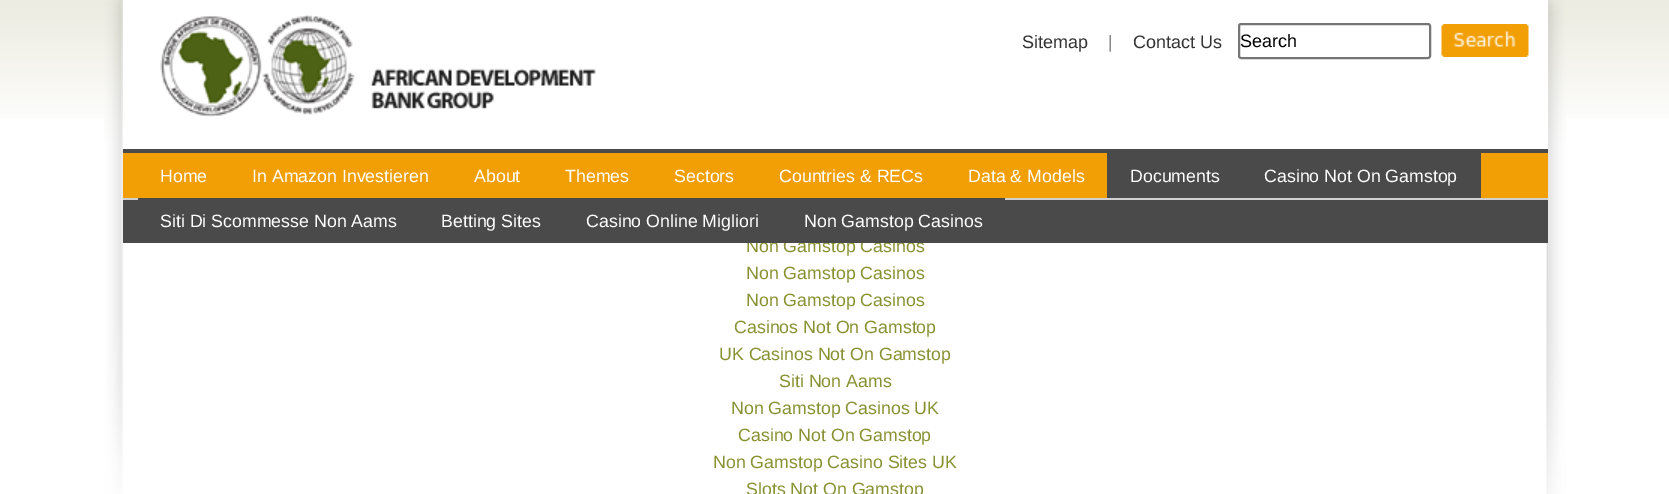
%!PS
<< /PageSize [1669 494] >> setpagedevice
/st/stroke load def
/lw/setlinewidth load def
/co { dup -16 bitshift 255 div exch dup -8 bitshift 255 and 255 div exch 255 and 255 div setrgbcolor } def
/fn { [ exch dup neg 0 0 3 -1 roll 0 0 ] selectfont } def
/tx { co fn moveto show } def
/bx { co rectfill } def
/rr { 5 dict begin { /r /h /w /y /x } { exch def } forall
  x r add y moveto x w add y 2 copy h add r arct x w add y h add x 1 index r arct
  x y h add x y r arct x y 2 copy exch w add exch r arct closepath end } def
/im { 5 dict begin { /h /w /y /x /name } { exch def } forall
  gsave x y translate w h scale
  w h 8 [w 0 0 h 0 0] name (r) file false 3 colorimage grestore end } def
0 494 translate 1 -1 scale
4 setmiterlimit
0 0 1669 494 16#FFFFFF bx
(media/1.raw) 0 0 1669 118 im
(media/2.raw) 104 0 1462 494 im
123 0 1425 149 16#FFFFFF bx
(media/3.raw) 160 15 436 102 im
16#767676 co
2 lw
1239 24 191 34 2 rr st
(media/4.raw) 1441 24 88 33 im
(Sitemap) 1022 48 /LiberationSans-Regular 18 16#333333 tx
(|) 1108 48 /LiberationSans-Regular 18 16#8D8A8A tx
(Contact Us) 1133 48 /LiberationSans-Regular 18 16#333333 tx
(Search) 1240 47 /LiberationSans-Regular 18 16#000000 tx
(Non Gamstop Casinos) 746 252 /LiberationSans-Regular 17.75 16#899232 tx
123 149 1425 94 16#4A4A4A bx
(Non Gamstop Casinos) 804 227 /LiberationSans-Regular 17.75 16#FFFFFF tx
(Casino Online Migliori) 586 227 /LiberationSans-Regular 17.75 16#FFFFFF tx
(Betting Sites) 441 227 /LiberationSans-Regular 17.75 16#FFFFFF tx
(Siti Di Scommesse Non Aams) 160 227 /LiberationSans-Regular 17.75 16#FFFFFF tx
123 198 1425 2 16#D0D0D0 bx
138 198 867 2 16#4A4A4A bx
123 153 1425 45 16#F29F05 bx
1107 153 374 45 16#4A4A4A bx
(Casino Not On Gamstop) 1264 182 /LiberationSans-Regular 17.75 16#FFFFFF tx
(Documents) 1130 182 /LiberationSans-Regular 17.75 16#FFFFFF tx
(Data & Models) 968 182 /LiberationSans-Regular 17.75 16#FFFFFF tx
(Countries & RECs) 779 182 /LiberationSans-Regular 17.75 16#FFFFFF tx
(Sectors) 674 182 /LiberationSans-Regular 17.75 16#FFFFFF tx
(Themes) 565 182 /LiberationSans-Regular 17.75 16#FFFFFF tx
(About) 474 182 /LiberationSans-Regular 17.75 16#FFFFFF tx
(In Amazon Investieren) 252 182 /LiberationSans-Regular 17.75 16#FFFFFF tx
(Home) 160 182 /LiberationSans-Regular 17.75 16#FFFFFF tx
(Non Gamstop Casinos) 746 279 /LiberationSans-Regular 17.75 16#899232 tx
(Non Gamstop Casinos) 746 306 /LiberationSans-Regular 17.75 16#899232 tx
(Casinos Not On Gamstop) 734 333 /LiberationSans-Regular 17.75 16#899232 tx
(UK Casinos Not On Gamstop) 719 360 /LiberationSans-Regular 17.75 16#899232 tx
(Siti Non Aams) 779 387 /LiberationSans-Regular 17.75 16#899232 tx
(Non Gamstop Casinos UK) 731 414 /LiberationSans-Regular 17.75 16#899232 tx
(Casino Not On Gamstop) 738 441 /LiberationSans-Regular 17.75 16#899232 tx
(Non Gamstop Casino Sites UK) 713 468 /LiberationSans-Regular 17.75 16#899232 tx
(Slots Not On Gamstop) 746 495 /LiberationSans-Regular 17.75 16#899232 tx
showpage
